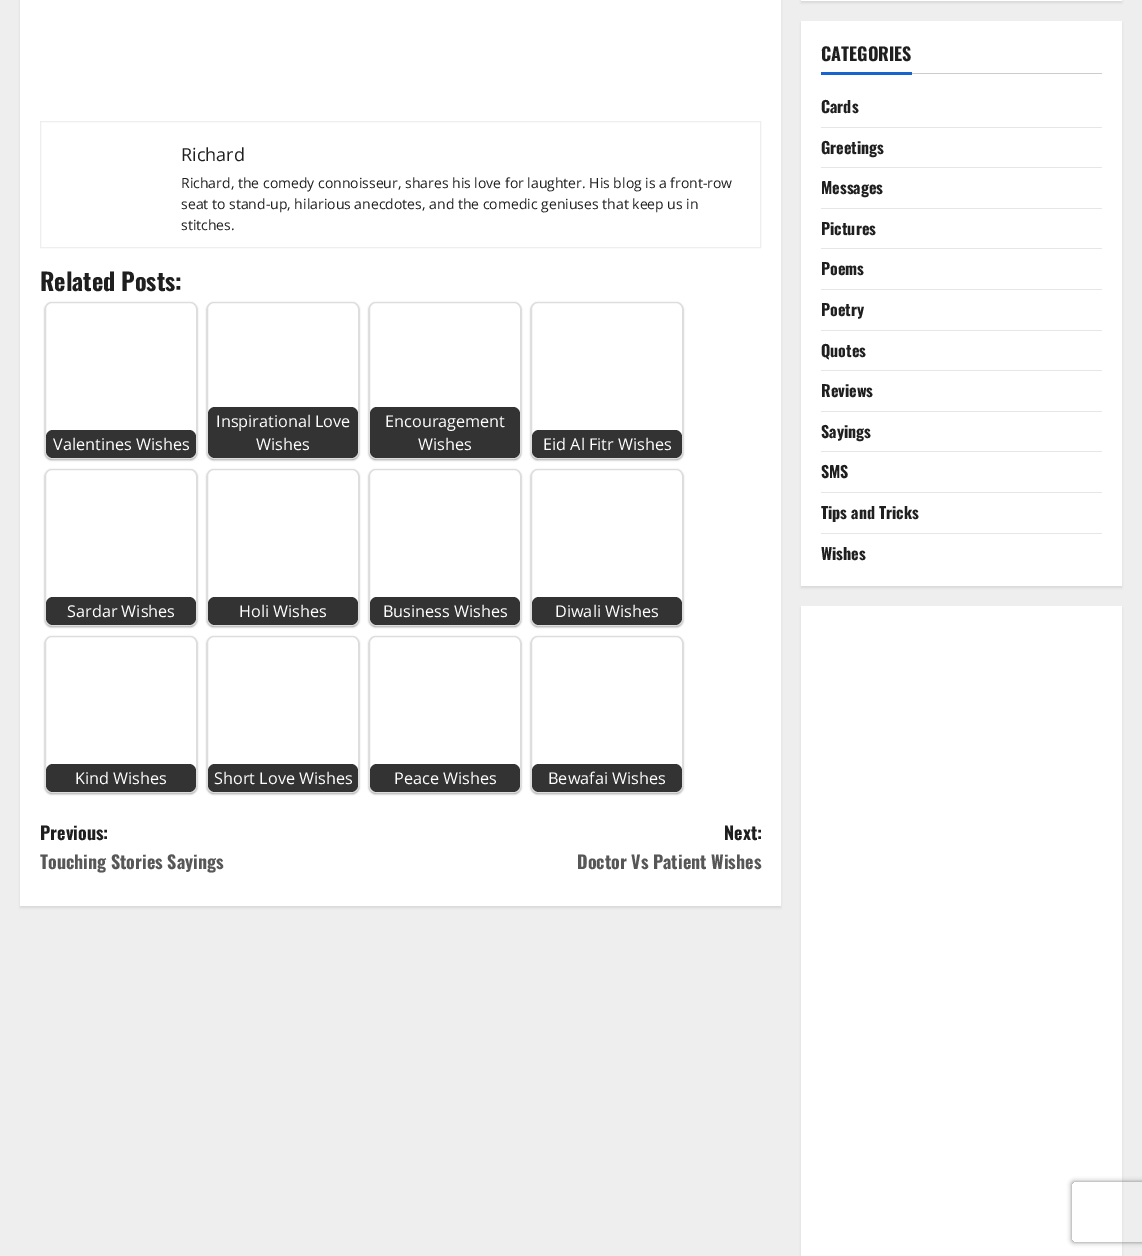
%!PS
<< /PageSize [1142 1256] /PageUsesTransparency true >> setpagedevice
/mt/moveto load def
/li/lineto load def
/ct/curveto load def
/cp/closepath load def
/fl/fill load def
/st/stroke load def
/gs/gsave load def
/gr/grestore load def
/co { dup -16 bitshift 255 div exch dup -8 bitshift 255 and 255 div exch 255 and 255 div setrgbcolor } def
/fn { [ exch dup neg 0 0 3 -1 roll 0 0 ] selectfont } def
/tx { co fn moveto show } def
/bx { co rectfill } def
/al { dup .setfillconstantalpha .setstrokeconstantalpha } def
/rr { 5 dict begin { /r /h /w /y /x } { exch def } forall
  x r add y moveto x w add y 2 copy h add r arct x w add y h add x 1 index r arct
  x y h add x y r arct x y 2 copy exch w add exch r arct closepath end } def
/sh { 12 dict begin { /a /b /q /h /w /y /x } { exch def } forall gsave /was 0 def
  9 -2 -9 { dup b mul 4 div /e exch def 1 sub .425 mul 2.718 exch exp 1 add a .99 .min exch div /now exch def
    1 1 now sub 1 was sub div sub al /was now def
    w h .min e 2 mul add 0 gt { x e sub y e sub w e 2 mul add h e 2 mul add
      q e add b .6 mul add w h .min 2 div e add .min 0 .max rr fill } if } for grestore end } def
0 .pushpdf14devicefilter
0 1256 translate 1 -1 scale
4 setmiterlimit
0 0 1142 1256 16#EEEEEE bx
16#000000 co
20 -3 761 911 0 1 .08 sh
20 0 761 906 16#FFFFFF bx
16#EEEEEE co
40.5 121.5 720 126 rectstroke
gs
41 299 mt 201 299 li 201 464 li 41 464 li cp 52 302 mt 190 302 li 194 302 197 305 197 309 ct 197 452 li 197 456 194 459 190 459 ct 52 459 li 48 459 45 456 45 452 ct 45 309 li 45 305 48 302 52 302 ct cp eoclip newpath
16#000000 co
45 303 152 157 7 1 .4 sh
gr
16#DDDDDD co
45.5 302.5 151 156 6.5 rr st
gs
46 303 150 155 6 rr clip newpath
16#333333 co
46 430 150 28 7 rr fl
gr
gs
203 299 mt 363 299 li 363 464 li 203 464 li cp 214 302 mt 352 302 li 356 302 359 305 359 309 ct 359 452 li 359 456 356 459 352 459 ct 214 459 li 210 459 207 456 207 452 ct 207 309 li 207 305 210 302 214 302 ct cp eoclip newpath
16#000000 co
207 303 152 157 7 1 .4 sh
gr
207.5 302.5 151 156 6.5 rr st
gs
208 303 150 155 6 rr clip newpath
16#333333 co
208 407 150 51 7 rr fl
gr
gs
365 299 mt 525 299 li 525 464 li 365 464 li cp 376 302 mt 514 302 li 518 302 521 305 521 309 ct 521 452 li 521 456 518 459 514 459 ct 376 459 li 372 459 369 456 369 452 ct 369 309 li 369 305 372 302 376 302 ct cp eoclip newpath
16#000000 co
369 303 152 157 7 1 .4 sh
gr
369.5 302.5 151 156 6.5 rr st
gs
370 303 150 155 6 rr clip newpath
16#333333 co
370 407 150 51 7 rr fl
gr
gs
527 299 mt 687 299 li 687 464 li 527 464 li cp 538 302 mt 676 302 li 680 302 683 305 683 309 ct 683 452 li 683 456 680 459 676 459 ct 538 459 li 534 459 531 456 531 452 ct 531 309 li 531 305 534 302 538 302 ct cp eoclip newpath
16#000000 co
531 303 152 157 7 1 .4 sh
gr
531.5 302.5 151 156 6.5 rr st
gs
532 303 150 155 6 rr clip newpath
16#333333 co
532 430 150 28 7 rr fl
gr
gs
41 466 mt 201 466 li 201 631 li 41 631 li cp 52 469 mt 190 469 li 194 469 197 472 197 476 ct 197 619 li 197 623 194 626 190 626 ct 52 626 li 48 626 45 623 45 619 ct 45 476 li 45 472 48 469 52 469 ct cp eoclip newpath
16#000000 co
45 470 152 157 7 1 .4 sh
gr
45.5 469.5 151 156 6.5 rr st
gs
46 470 150 155 6 rr clip newpath
16#333333 co
46 597 150 28 7 rr fl
gr
gs
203 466 mt 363 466 li 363 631 li 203 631 li cp 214 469 mt 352 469 li 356 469 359 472 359 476 ct 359 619 li 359 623 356 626 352 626 ct 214 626 li 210 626 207 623 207 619 ct 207 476 li 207 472 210 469 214 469 ct cp eoclip newpath
16#000000 co
207 470 152 157 7 1 .4 sh
gr
207.5 469.5 151 156 6.5 rr st
gs
208 470 150 155 6 rr clip newpath
16#333333 co
208 597 150 28 7 rr fl
gr
gs
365 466 mt 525 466 li 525 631 li 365 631 li cp 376 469 mt 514 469 li 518 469 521 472 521 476 ct 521 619 li 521 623 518 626 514 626 ct 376 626 li 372 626 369 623 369 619 ct 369 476 li 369 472 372 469 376 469 ct cp eoclip newpath
16#000000 co
369 470 152 157 7 1 .4 sh
gr
369.5 469.5 151 156 6.5 rr st
gs
370 470 150 155 6 rr clip newpath
16#333333 co
370 597 150 28 7 rr fl
gr
gs
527 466 mt 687 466 li 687 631 li 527 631 li cp 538 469 mt 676 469 li 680 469 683 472 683 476 ct 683 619 li 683 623 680 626 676 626 ct 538 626 li 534 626 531 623 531 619 ct 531 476 li 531 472 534 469 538 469 ct cp eoclip newpath
16#000000 co
531 470 152 157 7 1 .4 sh
gr
531.5 469.5 151 156 6.5 rr st
gs
532 470 150 155 6 rr clip newpath
16#333333 co
532 597 150 28 7 rr fl
gr
gs
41 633 mt 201 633 li 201 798 li 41 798 li cp 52 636 mt 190 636 li 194 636 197 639 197 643 ct 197 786 li 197 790 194 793 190 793 ct 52 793 li 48 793 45 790 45 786 ct 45 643 li 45 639 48 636 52 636 ct cp eoclip newpath
16#000000 co
45 637 152 157 7 1 .4 sh
gr
45.5 636.5 151 156 6.5 rr st
gs
46 637 150 155 6 rr clip newpath
16#333333 co
46 764 150 28 7 rr fl
gr
gs
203 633 mt 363 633 li 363 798 li 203 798 li cp 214 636 mt 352 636 li 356 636 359 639 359 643 ct 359 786 li 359 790 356 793 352 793 ct 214 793 li 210 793 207 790 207 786 ct 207 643 li 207 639 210 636 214 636 ct cp eoclip newpath
16#000000 co
207 637 152 157 7 1 .4 sh
gr
207.5 636.5 151 156 6.5 rr st
gs
208 637 150 155 6 rr clip newpath
16#333333 co
208 764 150 28 7 rr fl
gr
gs
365 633 mt 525 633 li 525 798 li 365 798 li cp 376 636 mt 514 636 li 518 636 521 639 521 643 ct 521 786 li 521 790 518 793 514 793 ct 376 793 li 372 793 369 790 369 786 ct 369 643 li 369 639 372 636 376 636 ct cp eoclip newpath
16#000000 co
369 637 152 157 7 1 .4 sh
gr
369.5 636.5 151 156 6.5 rr st
gs
370 637 150 155 6 rr clip newpath
16#333333 co
370 764 150 28 7 rr fl
gr
gs
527 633 mt 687 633 li 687 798 li 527 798 li cp 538 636 mt 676 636 li 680 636 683 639 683 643 ct 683 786 li 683 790 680 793 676 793 ct 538 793 li 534 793 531 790 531 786 ct 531 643 li 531 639 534 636 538 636 ct cp eoclip newpath
16#000000 co
531 637 152 157 7 1 .4 sh
gr
531.5 636.5 151 156 6.5 rr st
gs
532 637 150 155 6 rr clip newpath
16#333333 co
532 764 150 28 7 rr fl
gr
16#000000 co
801 -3 321 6 0 1 .08 sh
801 0 321 1 16#FFFFFF bx
16#000000 co
801 23 321 565 0 1 .08 sh
801 21 321 565 16#FFFFFF bx
912 73 190 1 16#CCCCCC bx
821 72 91 3 16#1665CF bx
821 127 281 1 16#E6E6E6 bx
821 167 281 1 16#E6E6E6 bx
821 208 281 1 16#E6E6E6 bx
821 248 281 1 16#E6E6E6 bx
821 289 281 1 16#E6E6E6 bx
821 330 281 1 16#E6E6E6 bx
821 370 281 1 16#E6E6E6 bx
821 411 281 1 16#E6E6E6 bx
821 451 281 1 16#E6E6E6 bx
821 492 281 1 16#E6E6E6 bx
821 533 281 1 16#E6E6E6 bx
16#000000 co
801 608 321 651 0 1 .08 sh
801 606 321 650 16#FFFFFF bx
gs
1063 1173 mt 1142 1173 li 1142 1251 li 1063 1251 li cp 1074 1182 mt 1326 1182 li 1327 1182 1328 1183 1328 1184 ct 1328 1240 li 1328 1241 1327 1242 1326 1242 ct 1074 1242 li 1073 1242 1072 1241 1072 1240 ct 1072 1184 li 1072 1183 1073 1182 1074 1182 ct cp eoclip newpath
16#808080 co
1072 1182 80 60 2 2.5 1 sh
gr
(Richard) 181 161 /OpenSans-Regular 18 16#1F1F1F tx
(Richard, the comedy connoisseur, shares his love for laughter. His blog is a front-row) 181 188 /OpenSans-Regular 14 16#1F1F1F tx
(seat to stand-up, hilarious anecdotes, and the comedic geniuses that keep us in) 181 209 /OpenSans-Regular 14 16#1F1F1F tx
(stitches.) 181 230 /OpenSans-Regular 14 16#1F1F1F tx
(Related Posts:) 40 291 /Oswald-Bold 24 16#1F1F1F tx
(Valentines Wishes) 53 450 /OpenSans-Regular 16.25 16#FFFFFF tx
(Inspirational Love) 216 427 /OpenSans-Regular 16.25 16#FFFFFF tx
(Wishes) 256 450 /OpenSans-Regular 16.25 16#FFFFFF tx
(Encouragement) 385 427 /OpenSans-Regular 16.25 16#FFFFFF tx
(Wishes) 418 450 /OpenSans-Regular 16.25 16#FFFFFF tx
(Eid Al Fitr Wishes) 543 450 /OpenSans-Regular 16.25 16#FFFFFF tx
(Sardar Wishes) 67 617 /OpenSans-Regular 16.25 16#FFFFFF tx
(Holi Wishes) 239 617 /OpenSans-Regular 16.25 16#FFFFFF tx
(Business Wishes) 383 617 /OpenSans-Regular 16.25 16#FFFFFF tx
(Diwali Wishes) 555 617 /OpenSans-Regular 16.25 16#FFFFFF tx
(Kind Wishes) 75 784 /OpenSans-Regular 16.25 16#FFFFFF tx
(Short Love Wishes) 214 784 /OpenSans-Regular 16.25 16#FFFFFF tx
(Peace Wishes) 394 784 /OpenSans-Regular 16.25 16#FFFFFF tx
(Bewafai Wishes) 548 784 /OpenSans-Regular 16.25 16#FFFFFF tx
(Previous:) 40 840 /Oswald-Bold 18 16#1F1F1F tx
(Touching Stories Sayings) 40 869 /Oswald-Bold 18 16#575757 tx
(Next:) 724 840 /Oswald-Bold 18 16#1F1F1F tx
(Doctor Vs Patient Wishes) 577 869 /Oswald-Bold 18 16#575757 tx
(CATEGORIES) 821 61 /Oswald-Bold 18 16#1F1F1F tx
(Cards) 821 113 /Oswald-Bold 16 16#1F1F1F tx
(Greetings) 821 154 /Oswald-Bold 16 16#1F1F1F tx
(Messages) 821 194 /Oswald-Bold 16 16#1F1F1F tx
(Pictures) 821 235 /Oswald-Bold 16 16#1F1F1F tx
(Poems) 821 275 /Oswald-Bold 16 16#1F1F1F tx
(Poetry) 821 316 /Oswald-Bold 16 16#1F1F1F tx
(Quotes) 821 357 /Oswald-Bold 16 16#1F1F1F tx
(Reviews) 821 397 /Oswald-Bold 16 16#1F1F1F tx
(Sayings) 821 438 /Oswald-Bold 16 16#1F1F1F tx
(SMS) 821 478 /Oswald-Bold 16 16#1F1F1F tx
(Tips and Tricks) 821 519 /Oswald-Bold 16 16#1F1F1F tx
(Wishes) 821 560 /Oswald-Bold 16 16#1F1F1F tx
.poppdf14devicefilter showpage
